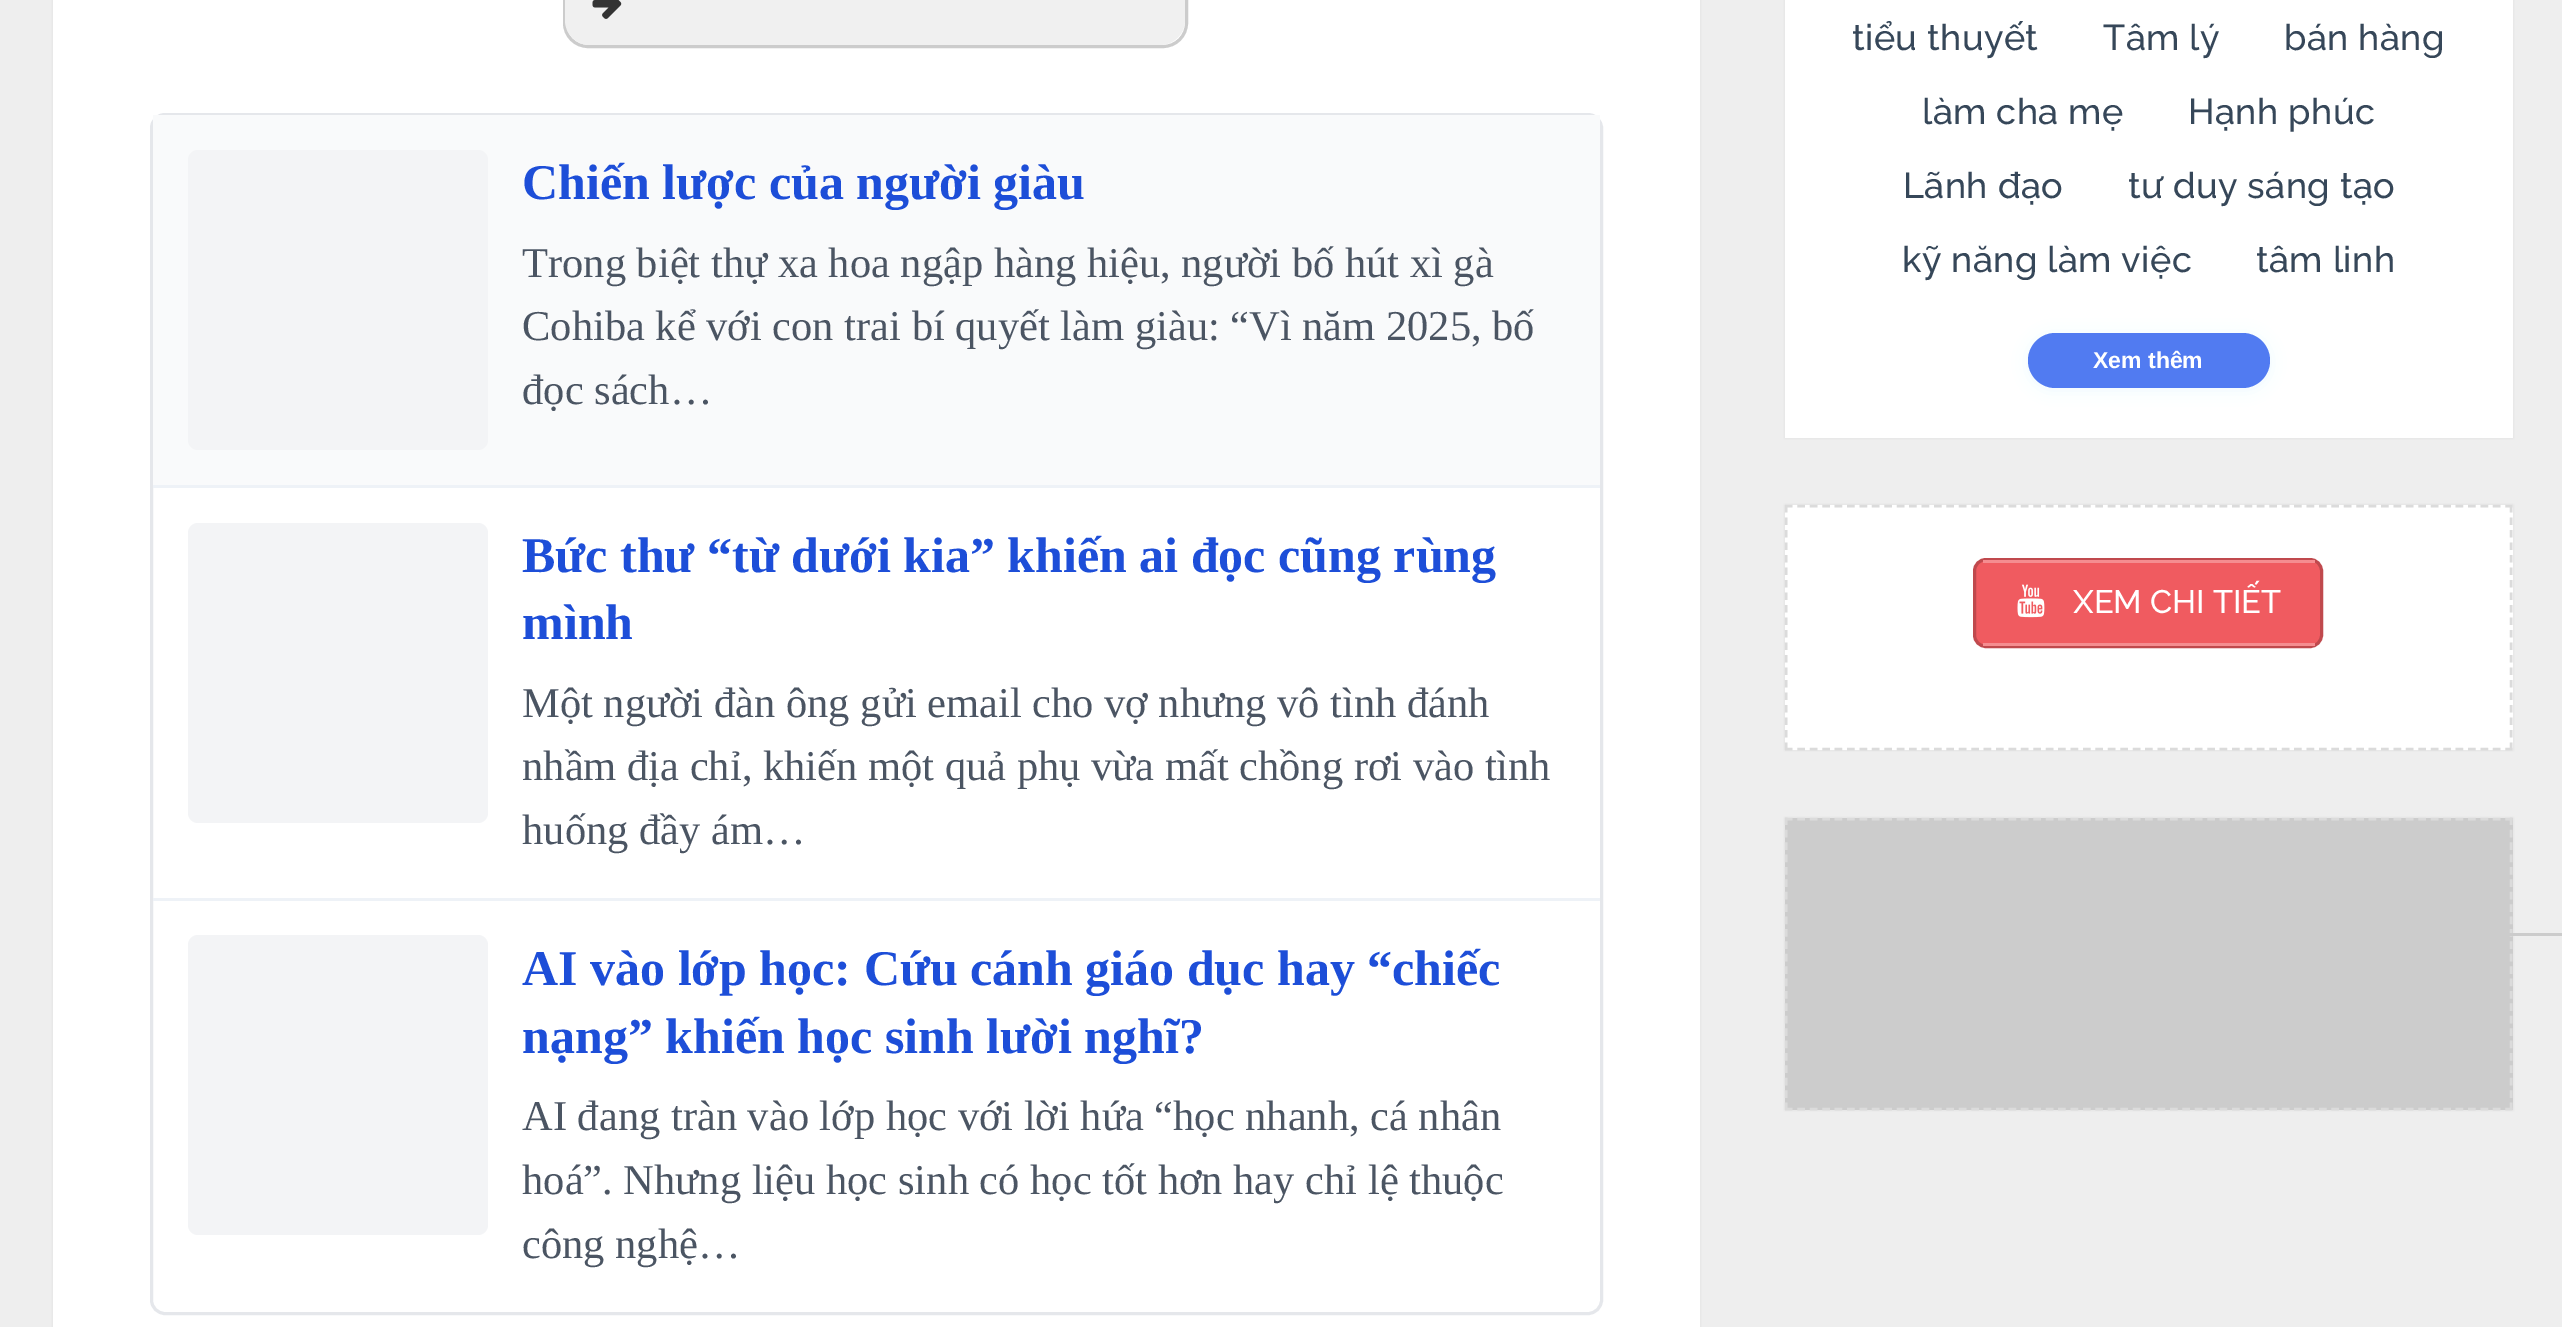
%!PS
<< /PageSize [2562 1327] /PageUsesTransparency true >> setpagedevice
/mt/moveto load def
/li/lineto load def
/fl/fill load def
/st/stroke load def
/gs/gsave load def
/gr/grestore load def
/lw/setlinewidth load def
/co { dup -16 bitshift 255 div exch dup -8 bitshift 255 and 255 div exch 255 and 255 div setrgbcolor } def
/fn { [ exch dup neg 0 0 3 -1 roll 0 0 ] selectfont } def
/tx { co fn moveto show } def
/bx { co rectfill } def
/al { dup .setfillconstantalpha .setstrokeconstantalpha } def
/rr { 5 dict begin { /r /h /w /y /x } { exch def } forall
  x r add y moveto x w add y 2 copy h add r arct x w add y h add x 1 index r arct
  x y h add x y r arct x y 2 copy exch w add exch r arct closepath end } def
/sh { 12 dict begin { /a /b /q /h /w /y /x } { exch def } forall gsave /was 0 def
  9 -2 -9 { dup b mul 4 div /e exch def 1 sub .425 mul 2.718 exch exp 1 add a .99 .min exch div /now exch def
    1 1 now sub 1 was sub div sub al /was now def
    w h .min e 2 mul add 0 gt { x e sub y e sub w e 2 mul add h e 2 mul add
      q e add b .6 mul add w h .min 2 div e add .min 0 .max rr fill } if } for grestore end } def
/im { 5 dict begin { /h /w /y /x /name } { exch def } forall
  gsave x y translate w h scale
  w h 8 [w 0 0 h 0 0] name (r) file false 3 colorimage grestore end } def
0 .pushpdf14devicefilter
0 1327 translate 1 -1 scale
4 setmiterlimit
0 0 2562 1327 16#EEEEEE bx
16#323232 co
53 -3 1647 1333 0 1 .1 sh
53 0 1647 1327 16#FFFFFF bx
16#CCCCCC co
3 lw
564.5 -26.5 622 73 23.5 rr st
16#F0F0F0 co
565 -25 620 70 25 rr fl
(media/1.raw) 592 0 30 19 im
16#E5E7EB co
151.5 114.5 1450 1199 13.5 rr st
153 115 1447 370 16#F9FAFB bx
153 485 1447 3 16#EEF2F7 bx
16#F3F4F6 co
188 150 300 300 10 rr fl
153 898 1447 3 16#EEF2F7 bx
16#F3F4F6 co
188 523 300 300 10 rr fl
188 935 300 300 10 rr fl
16#323232 co
1785 -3 728 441 0 1 .1 sh
1785 0 728 438 16#FFFFFF bx
16#2297FD co
2028 335 242 55 27.5 7.5 .07 sh
16#517BF1 co
2028 333 242 55 27.5 rr fl
16#323232 co
1785 505 728 245 0 1 .1 sh
1785 505 728 245 16#FFFFFF bx
16#DBDBDB co
2.5 lw
[7.5 4.92] 0 setdash
1785 506 mt 2512.5 506 li st
[7.5 5] 0 setdash
2511 505 mt 2511 750 li st
[7.5 4.92] 0 setdash
1785 749 mt 2512.5 749 li st
[7.5 5] 0 setdash
1786 505 mt 1786 750 li st
16#F05B60 co
1974.5 559.5 347 87 11.5 rr gs fl gr
16#C0494D co
3 lw
[] 0 setdash
st
1983 560 332 3 16#F58D90 bx
1983 643 332 3 16#F58D90 bx
(media/2.raw) 2017 584 28 34 im
16#323232 co
1785 818 728 292 0 1 .1 sh
1785 818 728 292 16#CCCCCC bx
16#DBDBDB co
2.5 lw
[7.5 4.92] 0 setdash
1785 819 mt 2512.5 819 li st
[7.5 4.9] 0 setdash
2511 817.5 mt 2511 1110 li st
[7.5 4.92] 0 setdash
1785 1109 mt 2512.5 1109 li st
[7.5 4.9] 0 setdash
1786 817.5 mt 1786 1110 li st
2509 933 53 3 16#CCCCCC bx
(Chiến lược của người giàu) 522 199 /LiberationSerif-Bold 50 16#1D4ED8 tx
(Trong biệt thự xa hoa ngập hàng hiệu, người bố hút xì gà) 522 277 /LiberationSerif-Regular 42.5 16#4B5563 tx
(Cohiba kể với con trai bí quyết làm giàu: “Vì năm 2025, bố) 522 340 /LiberationSerif-Regular 42.5 16#4B5563 tx
(đọc sách…) 522 404 /LiberationSerif-Regular 42.5 16#4B5563 tx
(Bức thư “từ dưới kia” khiến ai đọc cũng rùng) 522 572 /LiberationSerif-Bold 50 16#1D4ED8 tx
(mình) 522 639 /LiberationSerif-Bold 50 16#1D4ED8 tx
(Một người đàn ông gửi email cho vợ nhưng vô tình đánh) 522 717 /LiberationSerif-Regular 42.5 16#4B5563 tx
(nhầm địa chỉ, khiến một quả phụ vừa mất chồng rơi vào tình) 522 780 /LiberationSerif-Regular 42.5 16#4B5563 tx
(huống đầy ám…) 522 844 /LiberationSerif-Regular 42.5 16#4B5563 tx
(AI vào lớp học: Cứu cánh giáo dục hay “chiếc) 522 985 /LiberationSerif-Bold 50 16#1D4ED8 tx
(nạng” khiến học sinh lười nghĩ?) 522 1053 /LiberationSerif-Bold 50 16#1D4ED8 tx
(AI đang tràn vào lớp học với lời hứa “học nhanh, cá nhân) 522 1130 /LiberationSerif-Regular 42.5 16#4B5563 tx
(hoá”. Nhưng liệu học sinh có học tốt hơn hay chỉ lệ thuộc) 522 1194 /LiberationSerif-Regular 42.5 16#4B5563 tx
(công nghệ…) 522 1258 /LiberationSerif-Regular 42.5 16#4B5563 tx
/Raleway-Medium 36 fn
16#364759 co
1852 50 mt .4 0 (tiểu thuyết) ashow
2103 50 mt .4 0 (Tâm lý) ashow
2284 50 mt .4 0 (bán hàng) ashow
1922 124 mt .4 0 (làm cha mẹ) ashow
2188 124 mt .4 0 (Hạnh phúc) ashow
1903 198 mt .4 0 (Lãnh đạo) ashow
2128 198 mt .4 0 (tư duy sáng tạo) ashow
1902 272 mt .4 0 (kỹ năng làm việc) ashow
2256 272 mt .4 0 (tâm linh) ashow
(Xem thêm) 2093 368 /LiberationSans-Bold 23 16#FFFFFF tx
(XEM CHI TIẾT) 2073 613 /Raleway-Medium 32.5 16#FFFFFF tx
.poppdf14devicefilter showpage
